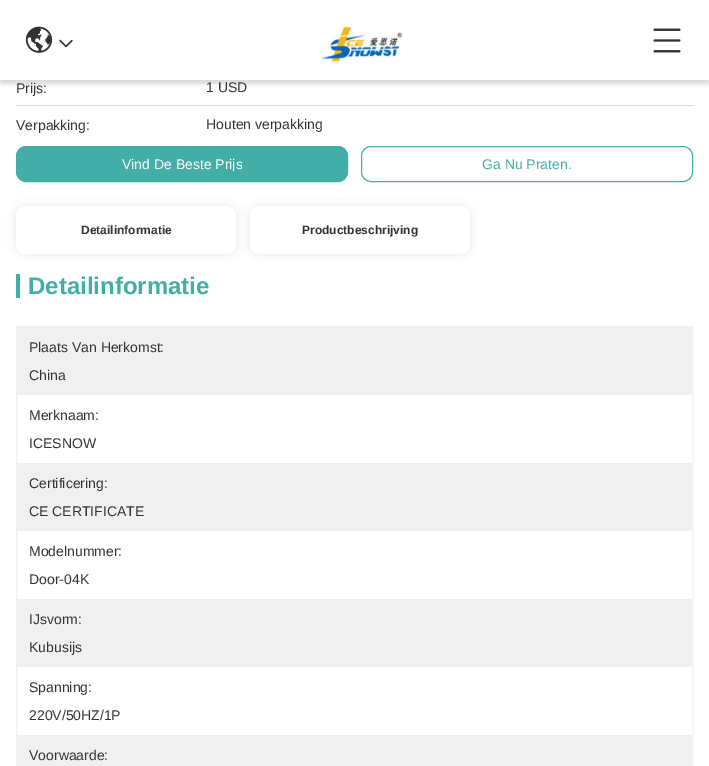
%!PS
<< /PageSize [709 766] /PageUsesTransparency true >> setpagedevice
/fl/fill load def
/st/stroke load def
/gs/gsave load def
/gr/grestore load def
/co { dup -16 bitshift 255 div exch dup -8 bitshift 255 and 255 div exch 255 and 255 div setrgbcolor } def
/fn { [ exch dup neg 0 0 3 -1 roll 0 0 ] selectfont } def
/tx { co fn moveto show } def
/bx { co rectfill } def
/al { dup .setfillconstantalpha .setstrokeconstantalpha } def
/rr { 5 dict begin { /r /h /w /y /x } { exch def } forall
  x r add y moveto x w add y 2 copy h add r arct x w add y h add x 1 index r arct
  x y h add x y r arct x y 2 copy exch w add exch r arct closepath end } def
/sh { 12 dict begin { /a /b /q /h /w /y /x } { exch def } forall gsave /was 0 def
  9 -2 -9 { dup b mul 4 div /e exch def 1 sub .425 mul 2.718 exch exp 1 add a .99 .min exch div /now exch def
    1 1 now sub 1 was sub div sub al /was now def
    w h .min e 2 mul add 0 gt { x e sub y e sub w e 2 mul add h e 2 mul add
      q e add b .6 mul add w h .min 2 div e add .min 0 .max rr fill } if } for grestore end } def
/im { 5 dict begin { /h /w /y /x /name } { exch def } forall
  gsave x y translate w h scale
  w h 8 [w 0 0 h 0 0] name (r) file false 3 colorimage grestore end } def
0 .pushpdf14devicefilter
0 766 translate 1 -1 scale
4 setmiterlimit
0 0 709 766 16#FFFFFF bx
16#000000 co
0 4 709 80 0 2 .15 sh
0 1 709 79 16#FFFFFF bx
(media/1.raw) 25 26 28 27 im
(media/2.raw) 59 39 14 9 im
(media/3.raw) 321 26 82 37 im
(media/4.raw) 653 28 28 25 im
16 105 678 1 16#DCDCDC bx
16#43ADA7 co
16.5 146.5 331 35 9.5 rr gs fl gr
st
361.5 146.5 331 35 9.5 rr st
16#000000 co
16 206 220 48 10 5 .1 sh
16#FFFFFF co
16 206 220 48 10 rr fl
16#000000 co
250 206 220 48 10 5 .1 sh
16#FFFFFF co
250 206 220 48 10 rr fl
16 274 4 24 16#43ADA7 bx
16#F0F0F0 co
16.5 326.5 676 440 rectstroke
17 327 675 68 16#F0F0F0 bx
17 463 675 68 16#F0F0F0 bx
17 599 675 68 16#F0F0F0 bx
17 735 675 31 16#F0F0F0 bx
(Prijs:) 16 93 /LiberationSans-Regular 14 16#333333 tx
(1 USD) 206 92 /LiberationSans-Regular 14 16#333333 tx
(Verpakking:) 16 130 /LiberationSans-Regular 14 16#333333 tx
(Houten verpakking) 206 129 /LiberationSans-Regular 14 16#333333 tx
gs
122 157 120 14 rectclip
(Vind De Beste Prijs) 122 169 /LiberationSans-Regular 14 16#FFFFFF tx
gr
(Ga Nu Praten.) 482 169 /LiberationSans-Regular 14 16#43ADA7 tx
(Detailinformatie) 81 234 /LiberationSans-Bold 12 16#333333 tx
(Productbeschrijving) 302 234 /LiberationSans-Bold 12 16#333333 tx
(Detailinformatie) 28 294 /LiberationSans-Bold 24 16#43ADA7 tx
(Plaats Van Herkomst:) 29 352 /LiberationSans-Regular 14 16#333333 tx
(China) 29 380 /LiberationSans-Regular 14 16#333333 tx
(Merknaam:) 29 420 /LiberationSans-Regular 14 16#333333 tx
(ICESNOW) 29 448 /LiberationSans-Regular 14 16#333333 tx
(Certificering:) 29 488 /LiberationSans-Regular 14 16#333333 tx
(CE CERTIFICATE) 29 516 /LiberationSans-Regular 14 16#333333 tx
(Modelnummer:) 29 556 /LiberationSans-Regular 14 16#333333 tx
(Door-04K) 29 584 /LiberationSans-Regular 14 16#333333 tx
(IJsvorm:) 29 624 /LiberationSans-Regular 14 16#333333 tx
(Kubusijs) 29 652 /LiberationSans-Regular 14 16#333333 tx
(Spanning:) 29 692 /LiberationSans-Regular 14 16#333333 tx
(220V/50HZ/1P) 29 720 /LiberationSans-Regular 14 16#333333 tx
(Voorwaarde:) 29 760 /LiberationSans-Regular 14 16#333333 tx
.poppdf14devicefilter showpage
